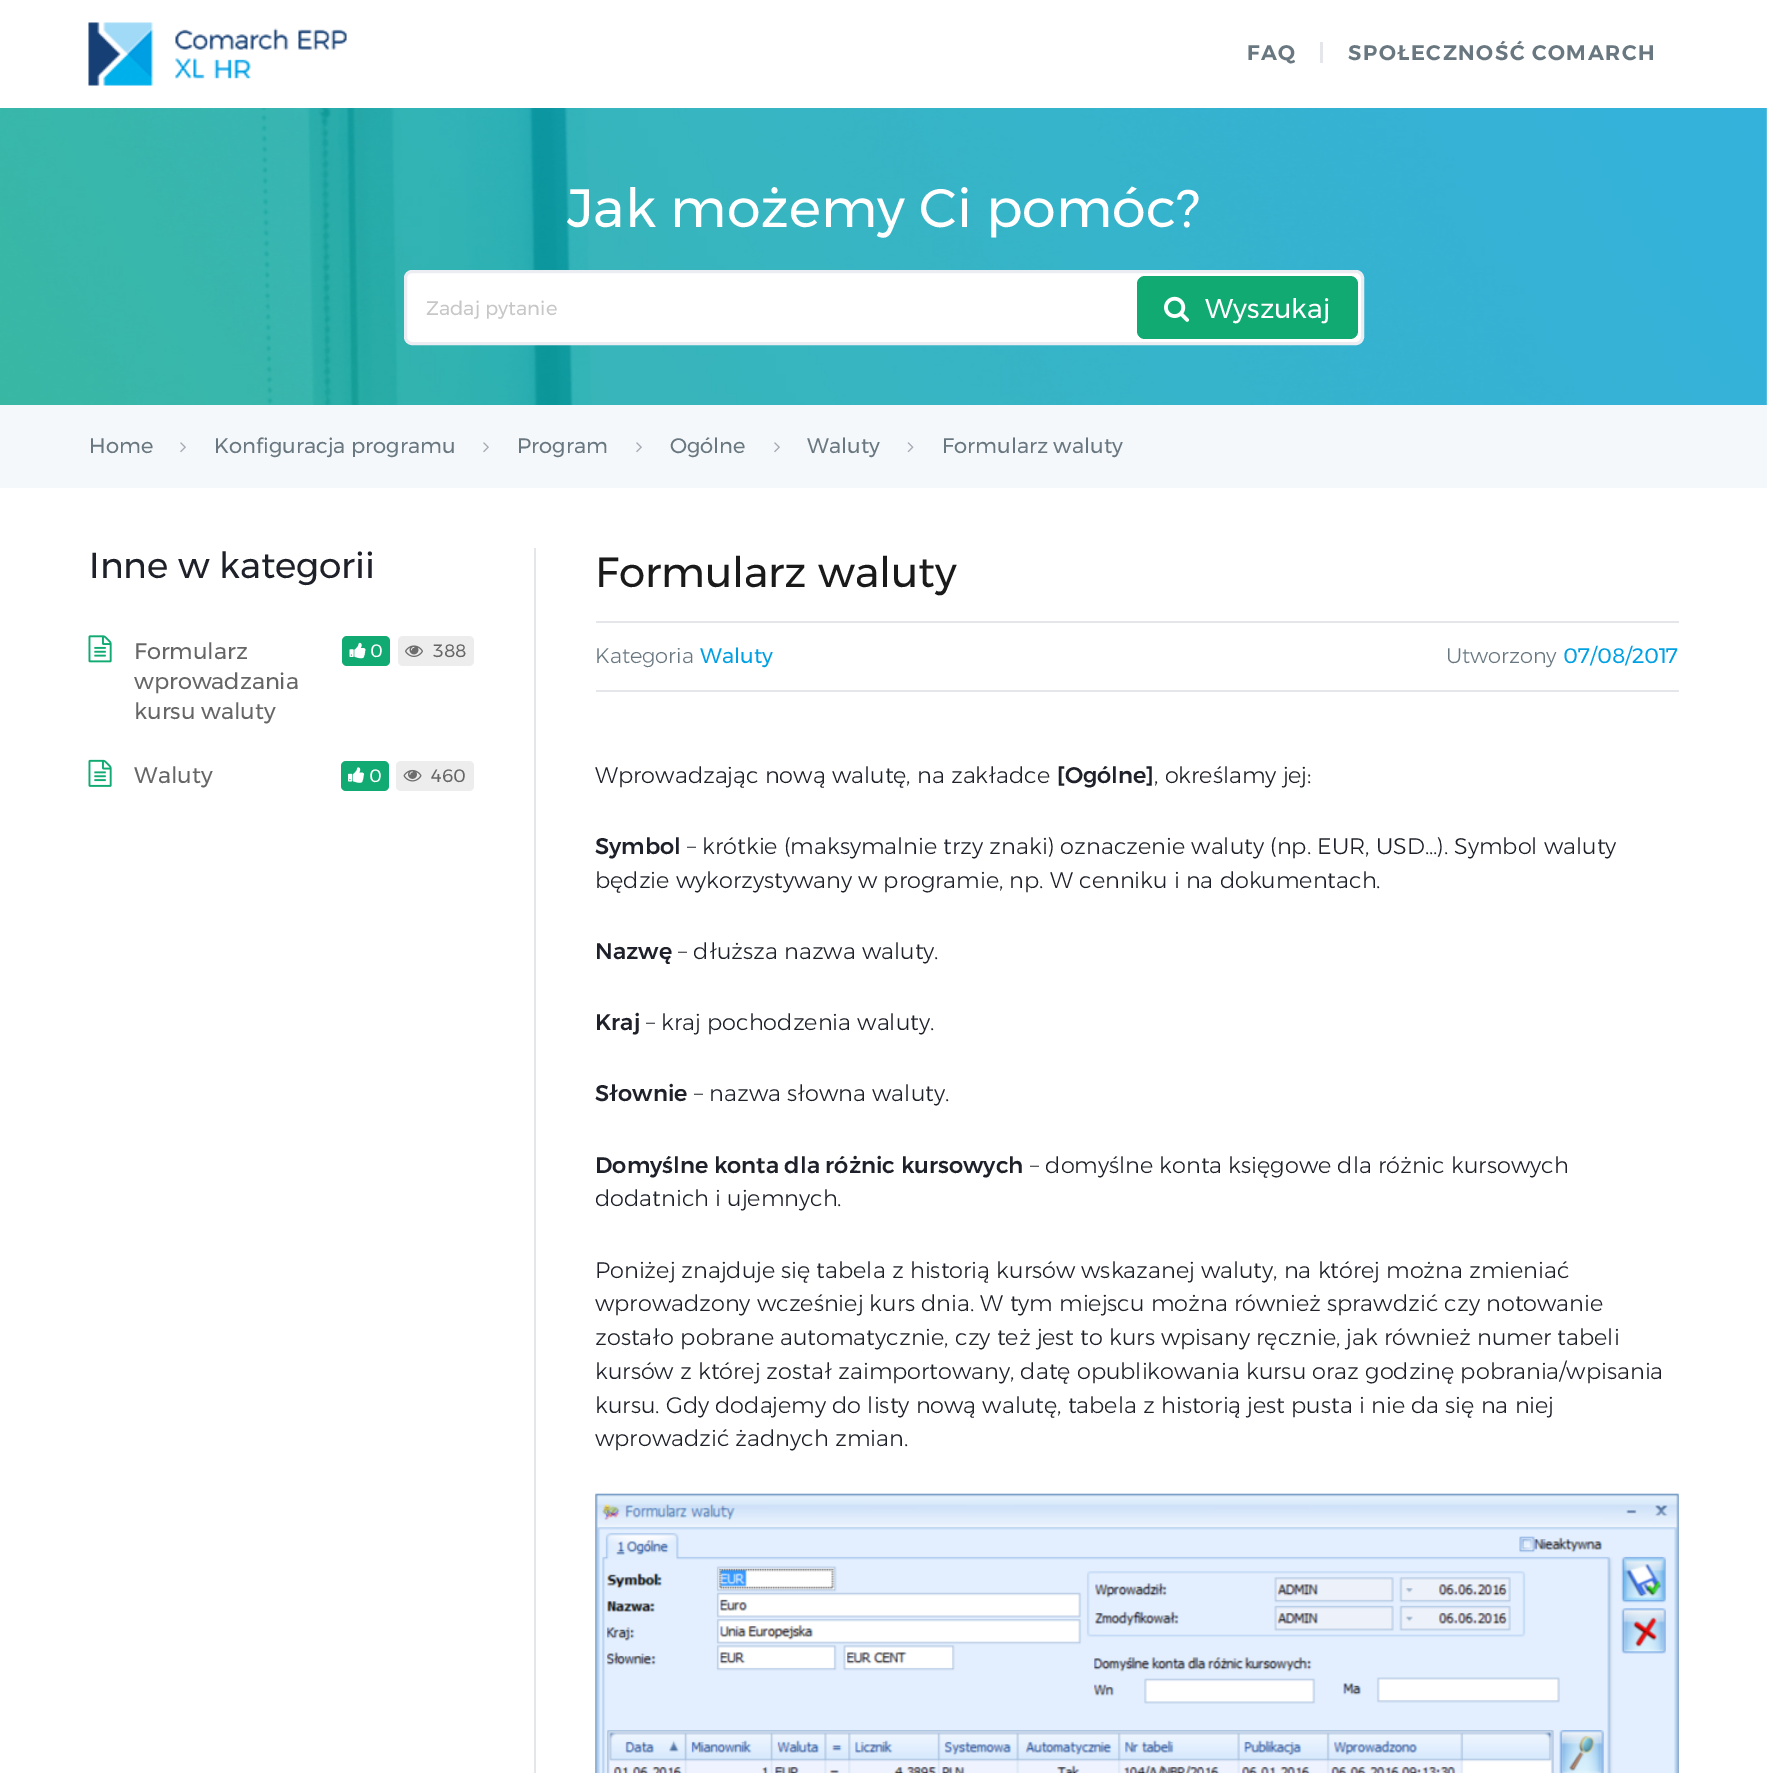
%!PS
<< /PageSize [1767 1773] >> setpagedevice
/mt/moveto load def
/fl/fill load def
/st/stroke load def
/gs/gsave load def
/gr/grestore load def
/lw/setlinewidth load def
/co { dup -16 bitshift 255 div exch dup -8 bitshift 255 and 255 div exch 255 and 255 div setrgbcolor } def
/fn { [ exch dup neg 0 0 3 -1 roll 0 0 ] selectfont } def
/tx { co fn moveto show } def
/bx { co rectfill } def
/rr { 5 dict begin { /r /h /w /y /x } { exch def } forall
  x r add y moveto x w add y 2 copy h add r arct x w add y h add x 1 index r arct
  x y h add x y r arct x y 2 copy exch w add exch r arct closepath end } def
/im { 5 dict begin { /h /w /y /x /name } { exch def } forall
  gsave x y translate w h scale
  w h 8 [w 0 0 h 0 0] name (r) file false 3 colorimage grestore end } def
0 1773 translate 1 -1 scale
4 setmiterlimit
0 0 1767 1773 16#FFFFFF bx
(media/1.raw) 88 22 259 64 im
1320 42 3 21 16#E5E6E9 bx
(media/2.raw) 0 108 1767 297 im
16#FFFFFF co
405.5 271.5 957 72 6.5 rr gs fl gr
16#ECEDF2 co
3 lw
st
16#11AA72 co
1137 276 221 63 8 rr fl
(media/3.raw) 1164 296 25 26 im
0 405 1767 83 16#F5F8FA bx
(media/4.raw) 180 442 6 11 im
(media/4.raw) 483 442 6 11 im
(media/4.raw) 636 442 6 11 im
(media/4.raw) 774 442 6 11 im
(media/5.raw) 907 442 7 11 im
(media/6.raw) 88 635 24 28 im
16#11AA72 co
342 636 48 30 5 rr fl
(media/7.raw) 349 642 17 17 im
16#EDEDED co
398 636 76 30 5 rr fl
(media/8.raw) 405 645 18 12 im
(media/9.raw) 88 759 24 28 im
16#11AA72 co
341 761 48 30 5 rr fl
(media/10.raw) 348 767 17 16 im
16#EDEDED co
396 761 78 30 5 rr fl
(media/11.raw) 403 769 19 13 im
534 548 2 1225 16#E5E6E9 bx
596 621 1083 2 16#E5E6E9 bx
596 690 1083 2 16#E5E6E9 bx
(media/12.raw) 595 1493 1084 280 im
/Montserrat-SemiBold 21 fn
16#697780 co
1247 60 mt 1.5 0 (FAQ) ashow
1348 60 mt 1.5 0 (SPOŁECZNOŚĆ COMARCH) ashow
(Jak możemy Ci pomóc?) 567 227 /Montserrat-Regular 54 16#FFFFFF tx
(Zadaj pytanie) 426 315 /Montserrat-Regular 19.5 16#C7C7C7 tx
(Wyszukaj) 1205 318 /Montserrat-Regular 27 16#FFFFFF tx
(Home) 89 453 /Montserrat-Regular 21 16#697780 tx
(Konfiguracja programu) 214 453 /Montserrat-Regular 21 16#697780 tx
(Program) 517 453 /Montserrat-Regular 21 16#697780 tx
(Ogólne) 670 453 /Montserrat-Regular 21 16#697780 tx
(Waluty) 807 453 /Montserrat-Regular 21 16#697780 tx
(Formularz waluty) 942 453 /Montserrat-Regular 21 16#697780 tx
(Inne w kategorii) 89 578 /Montserrat-Regular 36 16#1E2129 tx
(Formularz) 134 659 /Montserrat-Regular 22.5 16#666666 tx
(0) 370 657 /Montserrat-Regular 18 16#FFFFFF tx
(388) 433 657 /Montserrat-Regular 18 16#666666 tx
(wprowadzania) 134 689 /Montserrat-Regular 22.5 16#666666 tx
(kursu waluty) 134 719 /Montserrat-Regular 22.5 16#666666 tx
(Waluty) 134 783 /Montserrat-Regular 22.5 16#666666 tx
(0) 369 782 /Montserrat-Regular 18 16#FFFFFF tx
(460) 431 782 /Montserrat-Regular 18 16#666666 tx
(Formularz waluty) 595 587 /Montserrat-Regular 42 16#1A1A1A tx
(Kategoria) 595 663 /Montserrat-Light 21 16#697780 tx
(Waluty) 700 663 /Montserrat-Regular 21 16#00A0E3 tx
(Utworzony) 1446 663 /Montserrat-Light 21 16#697780 tx
(07/08/2017) 1563 663 /Montserrat-Regular 21 16#00A0E3 tx
(Wprowadzając nową walutę, na zakładce) 595 783 /Montserrat-Light 22.5 16#1E2129 tx
([Ogólne]) 1057 783 /Montserrat-Medium 22.5 16#1E2129 tx
(, określamy jej:) 1154 783 /Montserrat-Light 22.5 16#1E2129 tx
(Symbol) 595 854 /Montserrat-Medium 22.5 16#1E2129 tx
(– krótkie \(maksymalnie trzy znaki\) oznaczenie waluty \(np. EUR, USD…\). Symbol waluty) 687 854 /Montserrat-Light 22.5 16#1E2129 tx
(będzie wykorzystywany w programie, np. W cenniku i na dokumentach.) 595 888 /Montserrat-Light 22.5 16#1E2129 tx
(Nazwę) 595 959 /Montserrat-Medium 22.5 16#1E2129 tx
(– dłuższa nazwa waluty.) 678 959 /Montserrat-Light 22.5 16#1E2129 tx
(Kraj) 595 1030 /Montserrat-Medium 22.5 16#1E2129 tx
(– kraj pochodzenia waluty.) 646 1030 /Montserrat-Light 22.5 16#1E2129 tx
(Słownie) 595 1101 /Montserrat-Medium 22.5 16#1E2129 tx
(– nazwa słowna waluty.) 694 1101 /Montserrat-Light 22.5 16#1E2129 tx
(Domyślne konta dla różnic kursowych) 595 1173 /Montserrat-Medium 22.5 16#1E2129 tx
(– domyślne konta księgowe dla różnic kursowych) 1030 1173 /Montserrat-Light 22.5 16#1E2129 tx
(dodatnich i ujemnych.) 595 1206 /Montserrat-Light 22.5 16#1E2129 tx
(Poniżej znajduje się tabela z historią kursów wskazanej waluty, na której można zmieniać) 595 1278 /Montserrat-Light 22.5 16#1E2129 tx
(wprowadzony wcześniej kurs dnia. W tym miejscu można również sprawdzić czy notowanie) 595 1311 /Montserrat-Light 22.5 16#1E2129 tx
(zostało pobrane automatycznie, czy też jest to kurs wpisany ręcznie, jak również numer tabeli) 595 1345 /Montserrat-Light 22.5 16#1E2129 tx
(kursów z której został zaimportowany, datę opublikowania kursu oraz godzinę pobrania/wpisania) 595 1379 /Montserrat-Light 22.5 16#1E2129 tx
(kursu. Gdy dodajemy do listy nową walutę, tabela z historią jest pusta i nie da się na niej) 595 1413 /Montserrat-Light 22.5 16#1E2129 tx
(wprowadzić żadnych zmian.) 595 1446 /Montserrat-Light 22.5 16#1E2129 tx
showpage
